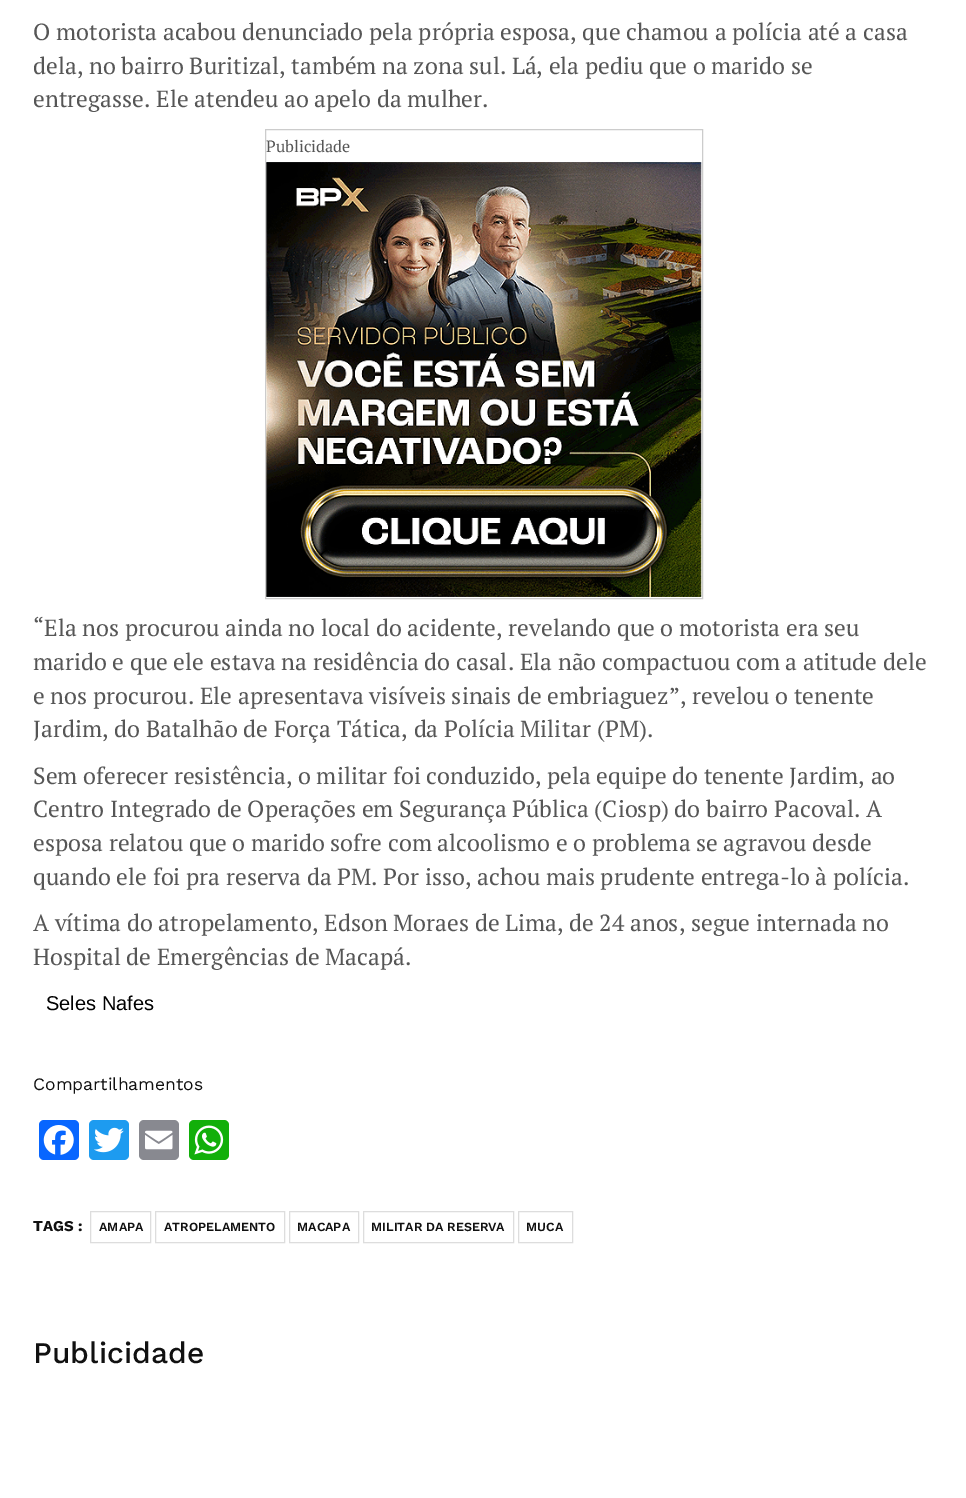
%!PS
<< /PageSize [966 1498] >> setpagedevice
/fl/fill load def
/co { dup -16 bitshift 255 div exch dup -8 bitshift 255 and 255 div exch 255 and 255 div setrgbcolor } def
/fn { [ exch dup neg 0 0 3 -1 roll 0 0 ] selectfont } def
/tx { co fn moveto show } def
/bx { co rectfill } def
/rr { 5 dict begin { /r /h /w /y /x } { exch def } forall
  x r add y moveto x w add y 2 copy h add r arct x w add y h add x 1 index r arct
  x y h add x y r arct x y 2 copy exch w add exch r arct closepath end } def
/im { 5 dict begin { /h /w /y /x /name } { exch def } forall
  gsave x y translate w h scale
  w h 8 [w 0 0 h 0 0] name (r) file false 3 colorimage grestore end } def
0 1498 translate 1 -1 scale
4 setmiterlimit
0 0 966 1498 16#FFFFFF bx
16#CCCCCC co
265.5 129.5 437 469 rectstroke
(media/1.raw) 266 162 436 435 im
16#0866FF co
39 1120 40 40 5 rr fl
(media/2.raw) 43 1125 31 30 im
16#1D9BF0 co
89 1120 40 40 5 rr fl
(media/3.raw) 94 1127 30 26 im
16#888990 co
139 1120 40 40 5 rr fl
(media/4.raw) 145 1130 28 20 im
16#12AF0A co
189 1120 40 40 5 rr fl
(media/5.raw) 194 1125 30 30 im
16#DDDDDD co
90.5 1211.5 60 31 rectstroke
155.5 1211.5 129 31 rectstroke
289.5 1211.5 69 31 rectstroke
363.5 1211.5 150 31 rectstroke
518.5 1211.5 54 31 rectstroke
(O motorista acabou denunciado pela própria esposa, que chamou a polícia até a casa) 33 40 /PTSerif-Regular 23.35 16#565656 tx
(dela, no bairro Buritizal, também na zona sul. Lá, ela pediu que o marido se) 33 74 /PTSerif-Regular 23.35 16#565656 tx
(entregasse. Ele atendeu ao apelo da mulher.) 33 107 /PTSerif-Regular 23.35 16#565656 tx
(Publicidade) 266 152 /PTSerif-Regular 16.25 16#565656 tx
(“Ela nos procurou ainda no local do acidente, revelando que o motorista era seu) 33 636 /PTSerif-Regular 23.35 16#565656 tx
(marido e que ele estava na residência do casal. Ela não compactuou com a atitude dele) 33 670 /PTSerif-Regular 23.35 16#565656 tx
(e nos procurou. Ele apresentava visíveis sinais de embriaguez”, revelou o tenente) 33 704 /PTSerif-Regular 23.35 16#565656 tx
(Jardim, do Batalhão de Força Tática, da Polícia Militar \(PM\).) 33 737 /PTSerif-Regular 23.35 16#565656 tx
(Sem oferecer resistência, o militar foi conduzido, pela equipe do tenente Jardim, ao) 33 784 /PTSerif-Regular 23.35 16#565656 tx
(Centro Integrado de Operações em Segurança Pública \(Ciosp\) do bairro Pacoval. A) 33 817 /PTSerif-Regular 23.35 16#565656 tx
(esposa relatou que o marido sofre com alcoolismo e o problema se agravou desde) 33 851 /PTSerif-Regular 23.35 16#565656 tx
(quando ele foi pra reserva da PM. Por isso, achou mais prudente entrega-lo à polícia.) 33 885 /PTSerif-Regular 23.35 16#565656 tx
(A vítima do atropelamento, Edson Moraes de Lima, de 24 anos, segue internada no) 33 931 /PTSerif-Regular 23.35 16#565656 tx
(Hospital de Emergências de Macapá.) 33 965 /PTSerif-Regular 23.35 16#565656 tx
(Seles Nafes) 46 1010 /LiberationSans-Regular 20 16#000000 tx
(Compartilhamentos) 33 1090 /WorkSans-Regular 17.5 16#111111 tx
(TAGS :) 33 1231 /WorkSans-Bold 15 16#111111 tx
(AMAPA) 99 1231 /WorkSans-SemiBold 12.5 16#111111 tx
(ATROPELAMENTO) 164 1231 /WorkSans-SemiBold 12.5 16#111111 tx
(MACAPA) 297 1231 /WorkSans-SemiBold 12.5 16#111111 tx
(MILITAR DA RESERVA) 371 1231 /WorkSans-SemiBold 12.5 16#111111 tx
(MUCA) 526 1231 /WorkSans-SemiBold 12.5 16#111111 tx
(Publicidade) 33 1363 /WorkSans-Medium 30 16#111111 tx
showpage
